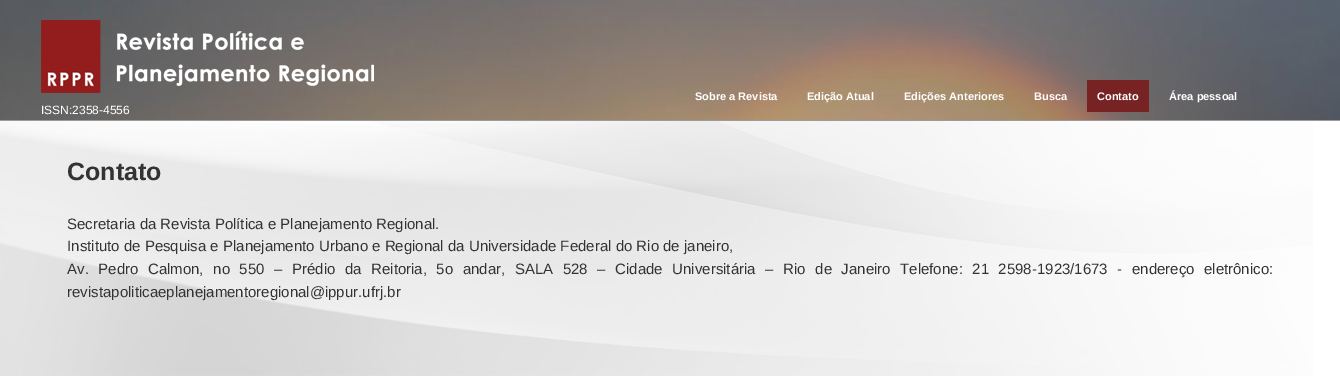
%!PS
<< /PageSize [1340 376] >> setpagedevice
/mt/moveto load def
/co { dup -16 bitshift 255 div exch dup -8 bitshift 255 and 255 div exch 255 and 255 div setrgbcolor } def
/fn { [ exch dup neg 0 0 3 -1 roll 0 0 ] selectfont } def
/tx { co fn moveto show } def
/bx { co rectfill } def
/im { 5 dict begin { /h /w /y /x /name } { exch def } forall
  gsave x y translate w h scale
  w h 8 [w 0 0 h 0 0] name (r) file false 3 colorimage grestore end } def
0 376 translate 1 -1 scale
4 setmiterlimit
0 0 1340 376 16#FFFFFF bx
(media/1.raw) 0 121 1313 255 im
(media/2.raw) 0 0 1340 120 im
0 120 1340 1 16#9B9B9D bx
1087 80 62 32 16#772323 bx
(media/3.raw) 41 20 333 73 im
(Sobre a Revista) 695 100 /LiberationSans-Bold 11 16#FFFFFF tx
(Edição Atual) 807 100 /LiberationSans-Bold 11 16#FFFFFF tx
(Edições Anteriores) 904 100 /LiberationSans-Bold 11 16#FFFFFF tx
(Busca) 1034 100 /LiberationSans-Bold 11 16#FFFFFF tx
(Contato) 1097 100 /LiberationSans-Bold 11 16#FFFFFF tx
(Área pessoal) 1169 100 /LiberationSans-Bold 11 16#FFFFFF tx
(ISSN:2358-4556) 41 114 /LiberationSans-Regular 12 16#FFFFFF tx
(Contato) 67 180 /LiberationSans-Bold 25 16#333333 tx
(Secretaria da Revista Política e Planejamento Regional.) 67 229 /LiberationSans-Regular 15 16#333333 tx
(Instituto de Pesquisa e Planejamento Urbano e Regional da Universidade Federal do Rio de janeiro,) 67 251 /LiberationSans-Regular 15 16#333333 tx
67 274 mt 5.4 0 32 (Av. Pedro Calmon, no 550 – Prédio da Reitoria, 5o andar, SALA 528 – Cidade Universitária – Rio de Janeiro Telefone: 21 2598-1923/1673 - endereço eletrônico:) widthshow
(revistapoliticaeplanejamentoregional@ippur.ufrj.br) 67 297 /LiberationSans-Regular 15 16#333333 tx
showpage
